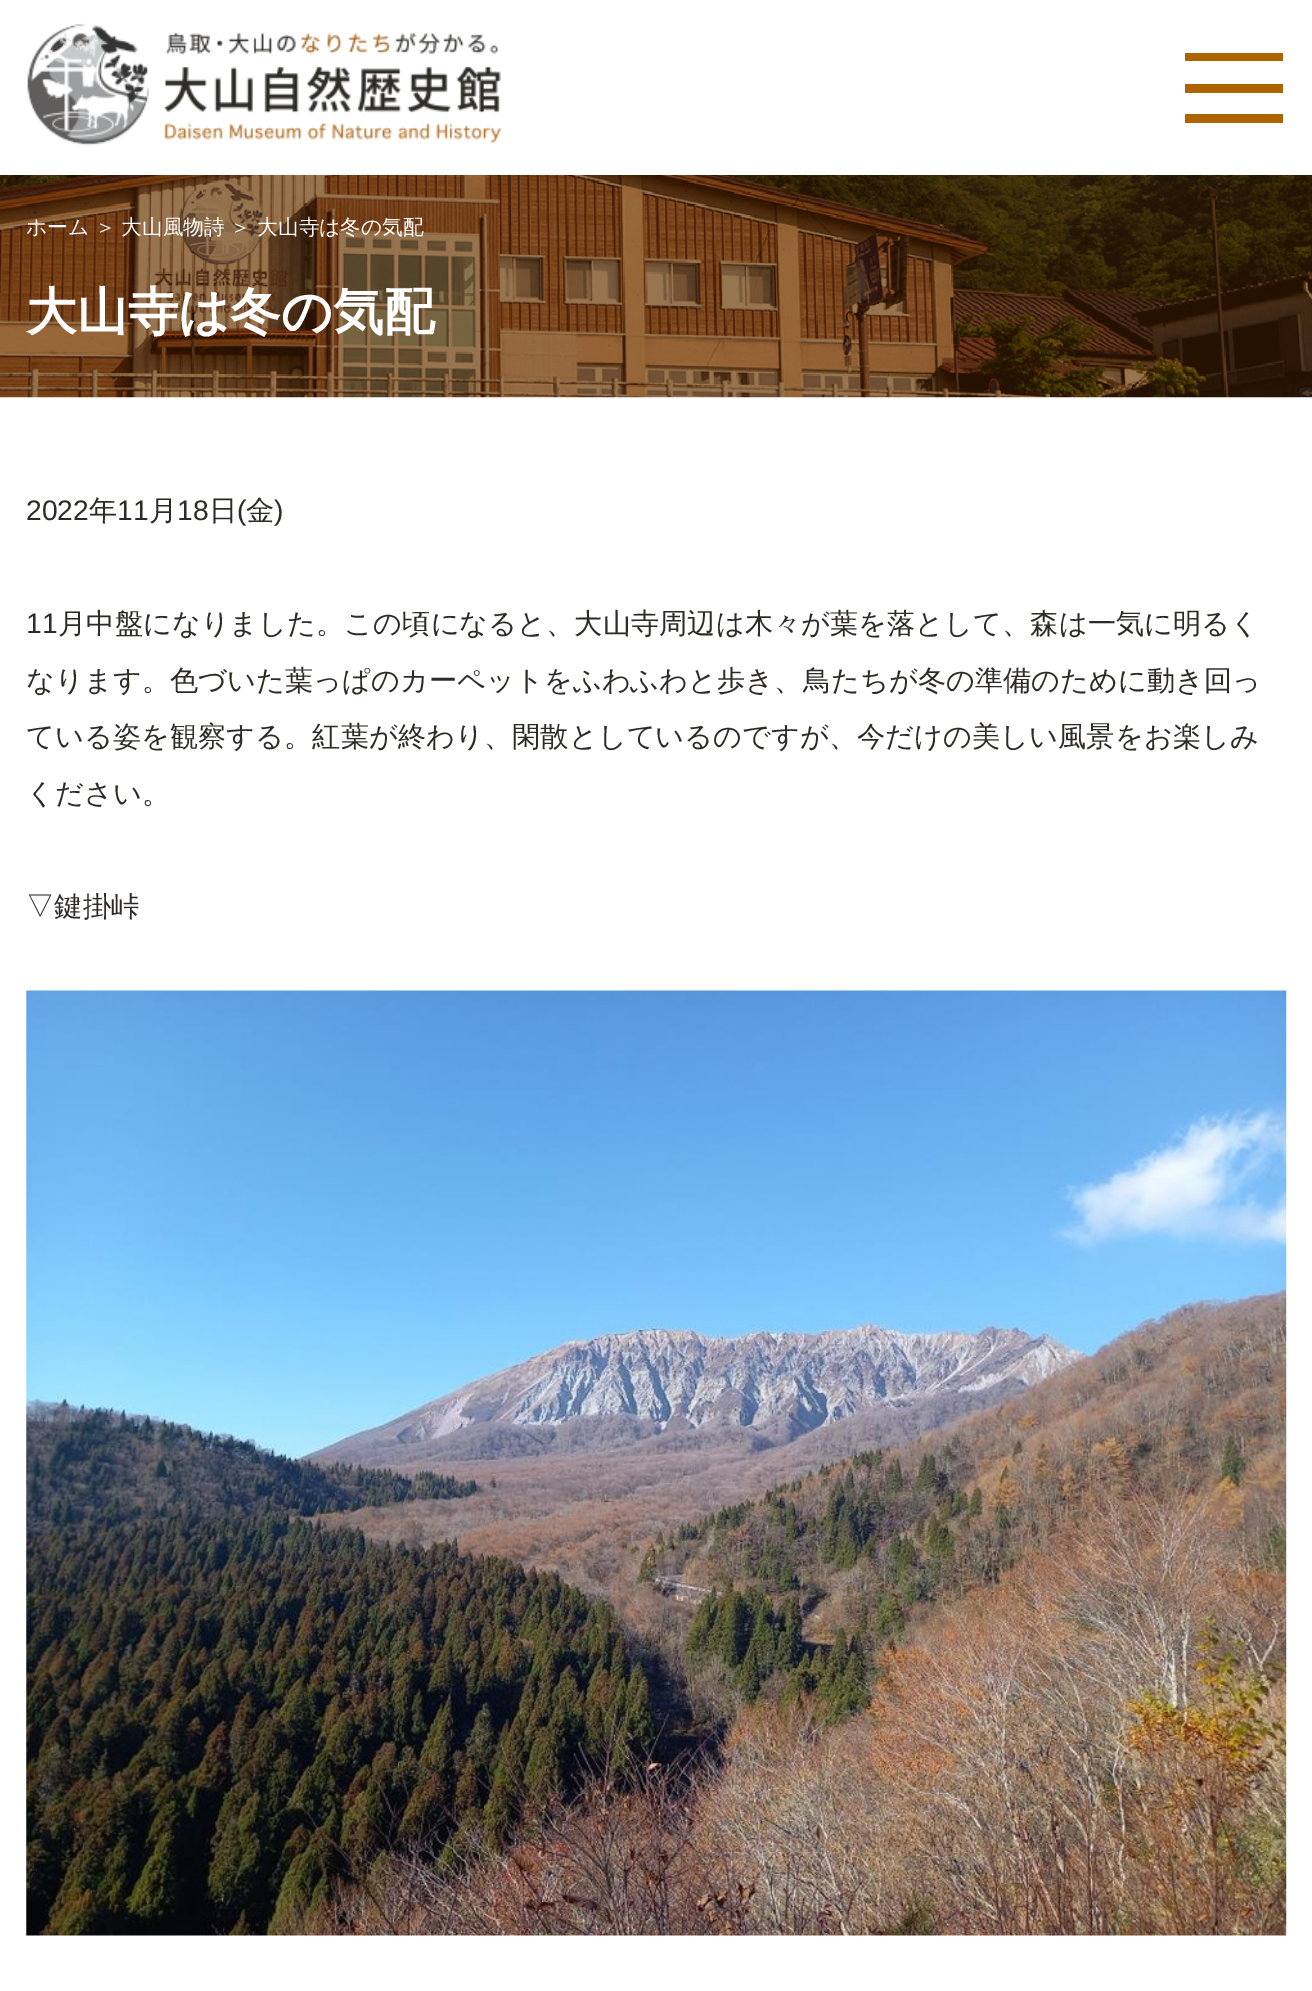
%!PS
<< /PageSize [1312 1991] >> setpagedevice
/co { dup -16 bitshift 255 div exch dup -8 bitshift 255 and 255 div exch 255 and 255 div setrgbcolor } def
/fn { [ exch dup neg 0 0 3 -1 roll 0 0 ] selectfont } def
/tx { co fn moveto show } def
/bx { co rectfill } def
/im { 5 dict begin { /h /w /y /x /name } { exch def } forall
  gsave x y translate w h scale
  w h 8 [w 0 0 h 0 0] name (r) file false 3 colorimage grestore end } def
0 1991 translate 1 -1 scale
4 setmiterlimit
0 0 1312 1991 16#FFFFFF bx
(media/1.raw) 27 23 474 123 im
1185 53 98 8 16#AE6400 bx
1185 84 98 9 16#AE6400 bx
1185 114 98 9 16#AE6400 bx
(media/2.raw) 0 175 1312 223 im
(media/3.raw) 26 990 1261 946 im
(ホーム) 26 234 /WenQuanYiZenHei-Medium 20.75 16#FFFFFF tx
(＞) 95 234 /WenQuanYiZenHei-Medium 20.75 16#FFFFFF tx
(大山風物詩) 121 234 /WenQuanYiZenHei-Medium 20.75 16#FFFFFF tx
(＞) 230 234 /WenQuanYiZenHei-Medium 20.75 16#FFFFFF tx
(大山寺は冬の気配) 257 234 /WenQuanYiZenHei-Medium 20.75 16#FFFFFF tx
(大山寺は冬の気配) 26 329 /WenQuanYiZenHei-Bold 50.75 16#FFFFFF tx
(2022) 26 520 /LiberationSans-Regular 28.25 16#2C2B26 tx
(年) 89 520 /WenQuanYiZenHei-Medium 28.25 16#2C2B26 tx
(11) 117 520 /LiberationSans-Regular 28.25 16#2C2B26 tx
(月) 149 520 /WenQuanYiZenHei-Medium 28.25 16#2C2B26 tx
(18) 177 520 /LiberationSans-Regular 28.25 16#2C2B26 tx
(日) 209 520 /WenQuanYiZenHei-Medium 28.25 16#2C2B26 tx
(\() 237 520 /LiberationSans-Regular 28.25 16#2C2B26 tx
(金) 246 520 /WenQuanYiZenHei-Medium 28.25 16#2C2B26 tx
(\)) 274 520 /LiberationSans-Regular 28.25 16#2C2B26 tx
(11) 26 633 /LiberationSans-Regular 28.25 16#2C2B26 tx
(月中盤になりました。この頃になると、大山寺周辺は木々が葉を落として、森は一気に明るく) 58 633 /WenQuanYiZenHei-Medium 28.25 16#2C2B26 tx
(なります。色づいた葉っぱのカーペットをふわふわと歩き、鳥たちが冬の準備のために動き回っ) 26 690 /WenQuanYiZenHei-Medium 28.25 16#2C2B26 tx
(ている姿を観察する。紅葉が終わり、閑散としているのですが、今だけの美しい風景をお楽しみ) 26 746 /WenQuanYiZenHei-Medium 28.25 16#2C2B26 tx
(ください。) 26 803 /WenQuanYiZenHei-Medium 28.25 16#2C2B26 tx
(▽鍵掛峠) 26 916 /WenQuanYiZenHei-Medium 28.25 16#2C2B26 tx
showpage
